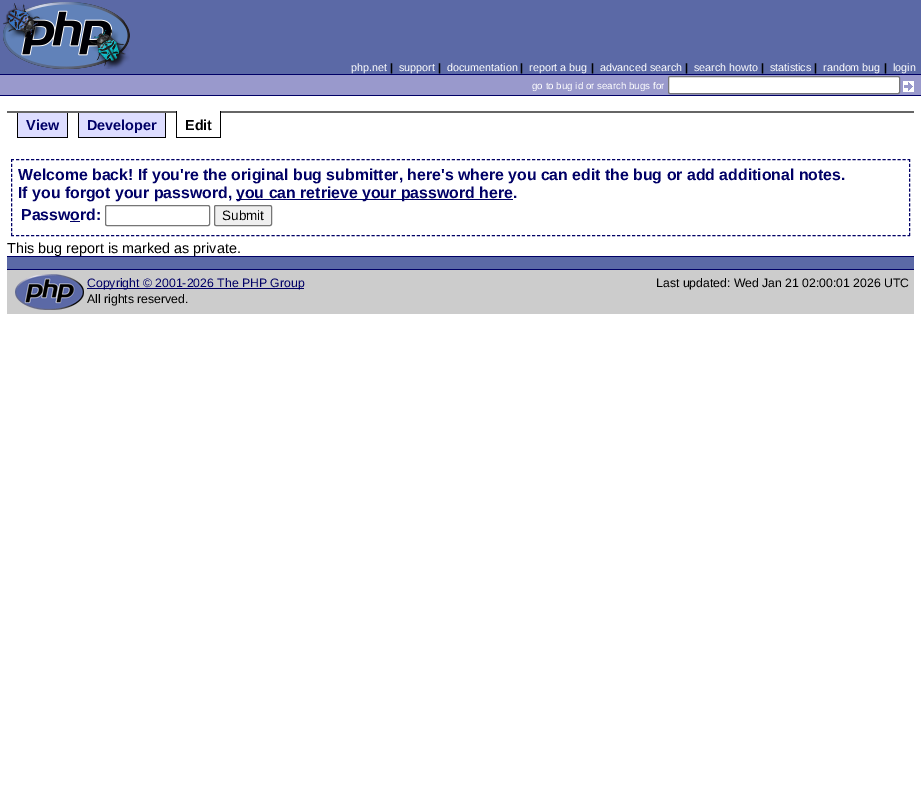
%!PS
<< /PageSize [921 796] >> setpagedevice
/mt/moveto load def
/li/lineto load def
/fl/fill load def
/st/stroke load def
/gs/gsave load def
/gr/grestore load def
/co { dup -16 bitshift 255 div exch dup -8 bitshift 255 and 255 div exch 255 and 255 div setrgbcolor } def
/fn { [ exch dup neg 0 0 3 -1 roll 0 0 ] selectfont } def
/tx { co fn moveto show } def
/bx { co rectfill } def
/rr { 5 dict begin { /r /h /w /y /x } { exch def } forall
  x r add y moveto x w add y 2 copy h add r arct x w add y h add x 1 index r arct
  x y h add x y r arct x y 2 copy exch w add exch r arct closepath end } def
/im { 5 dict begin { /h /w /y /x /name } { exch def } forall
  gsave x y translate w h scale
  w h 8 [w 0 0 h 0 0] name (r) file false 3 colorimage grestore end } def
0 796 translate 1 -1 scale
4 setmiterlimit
0 0 921 796 16#FFFFFF bx
0 0 921 74 16#5B69A6 bx
(media/1.raw) 3 2 127 67 im
0 75 921 20 16#9999CC bx
0 74 921 1 16#000066 bx
0 95 921 1 16#000066 bx
16#FFFFFF co
668.5 76.5 231 17 1.5 rr gs fl gr
16#767676 co
st
(media/2.raw) 903 81 11 11 im
7 111 907 2 16#666666 bx
18 113 49 24 16#DDDDFF bx
67 113 1 25 16#000000 bx
17 137 51 1 16#000000 bx
17 113 1 25 16#000000 bx
79 113 86 24 16#DDDDFF bx
165 113 1 25 16#000000 bx
78 137 88 1 16#000000 bx
78 113 1 25 16#000000 bx
177 111 43 2 16#FFFFFF bx
220 111 1 27 16#000000 bx
176 137 45 1 16#000000 bx
176 111 1 27 16#000000 bx
16#000066 co
[3 2.01] 0 setdash
11 159.5 mt 910 159.5 li st
[3 1.93] 0 setdash
909.5 159 mt 909.5 236 li st
[3 2.01] 0 setdash
11 235.5 mt 910 235.5 li st
[3 1.93] 0 setdash
11.5 159 mt 11.5 236 li st
236 199 277 1 16#000066 bx
70 221 10 1 16#000066 bx
16#767676 co
[] 0 setdash
105.5 205.5 104 20 1.5 rr st
16#EFEFEF co
214.5 205.5 57 20 1.5 rr gs fl gr
16#767676 co
st
7 257 907 12 16#5B69A6 bx
7 256 907 1 16#000066 bx
7 269 907 1 16#000066 bx
7 270 907 44 16#CCCCCC bx
(media/3.raw) 15 274 69 36 im
87 288 217 1 16#000066 bx
(php.net) 351 71 /LiberationSans-Regular 10.75 16#FFFFFF tx
(|) 390 71 /LiberationSans-Bold 10.75 16#000000 tx
(support) 399 71 /LiberationSans-Regular 10.75 16#FFFFFF tx
(|) 438 71 /LiberationSans-Bold 10.75 16#000000 tx
(documentation) 447 71 /LiberationSans-Regular 10.75 16#FFFFFF tx
(|) 520 71 /LiberationSans-Bold 10.75 16#000000 tx
(report a bug) 529 71 /LiberationSans-Regular 10.75 16#FFFFFF tx
(|) 591 71 /LiberationSans-Bold 10.75 16#000000 tx
(advanced search) 600 71 /LiberationSans-Regular 10.75 16#FFFFFF tx
(|) 685 71 /LiberationSans-Bold 10.75 16#000000 tx
(search howto) 694 71 /LiberationSans-Regular 10.75 16#FFFFFF tx
(|) 761 71 /LiberationSans-Bold 10.75 16#000000 tx
(statistics) 770 71 /LiberationSans-Regular 10.75 16#FFFFFF tx
(|) 814 71 /LiberationSans-Bold 10.75 16#000000 tx
(random bug) 823 71 /LiberationSans-Regular 10.75 16#FFFFFF tx
(|) 884 71 /LiberationSans-Bold 10.75 16#000000 tx
(login) 893 71 /LiberationSans-Regular 10.75 16#FFFFFF tx
(go to bug id or search bugs for) 532 89 /LiberationSans-Regular 9.75 16#FFFFFF tx
(View) 26 130 /LiberationSans-Bold 14.4 16#000066 tx
(Developer) 87 130 /LiberationSans-Bold 14.4 16#000066 tx
(Edit) 185 130 /LiberationSans-Bold 14.4 16#000000 tx
(Welcome back! If you're the original bug submitter, here's where you can edit the bug or add additional notes.) 18 180 /LiberationSans-Bold 15.85 16#000066 tx
(If you forgot your password,) 18 198 /LiberationSans-Bold 15.85 16#000066 tx
(you can retrieve your password here.) 236 198 /LiberationSans-Bold 15.85 16#000066 tx
(Password:) 21 220 /LiberationSans-Bold 15.85 16#000066 tx
(Submit) 222 220 /LiberationSans-Regular 13.5 16#000000 tx
(This bug report is marked as private.) 7 253 /LiberationSans-Regular 14.4 16#000000 tx
(Copyright © 2001-2026 The PHP Group) 87 287 /LiberationSans-Regular 12.25 16#000066 tx
(All rights reserved.) 87 303 /LiberationSans-Regular 12.25 16#000000 tx
(Last updated: Wed Jan 21 02:00:01 2026 UTC) 656 287 /LiberationSans-Regular 12.25 16#000000 tx
showpage
